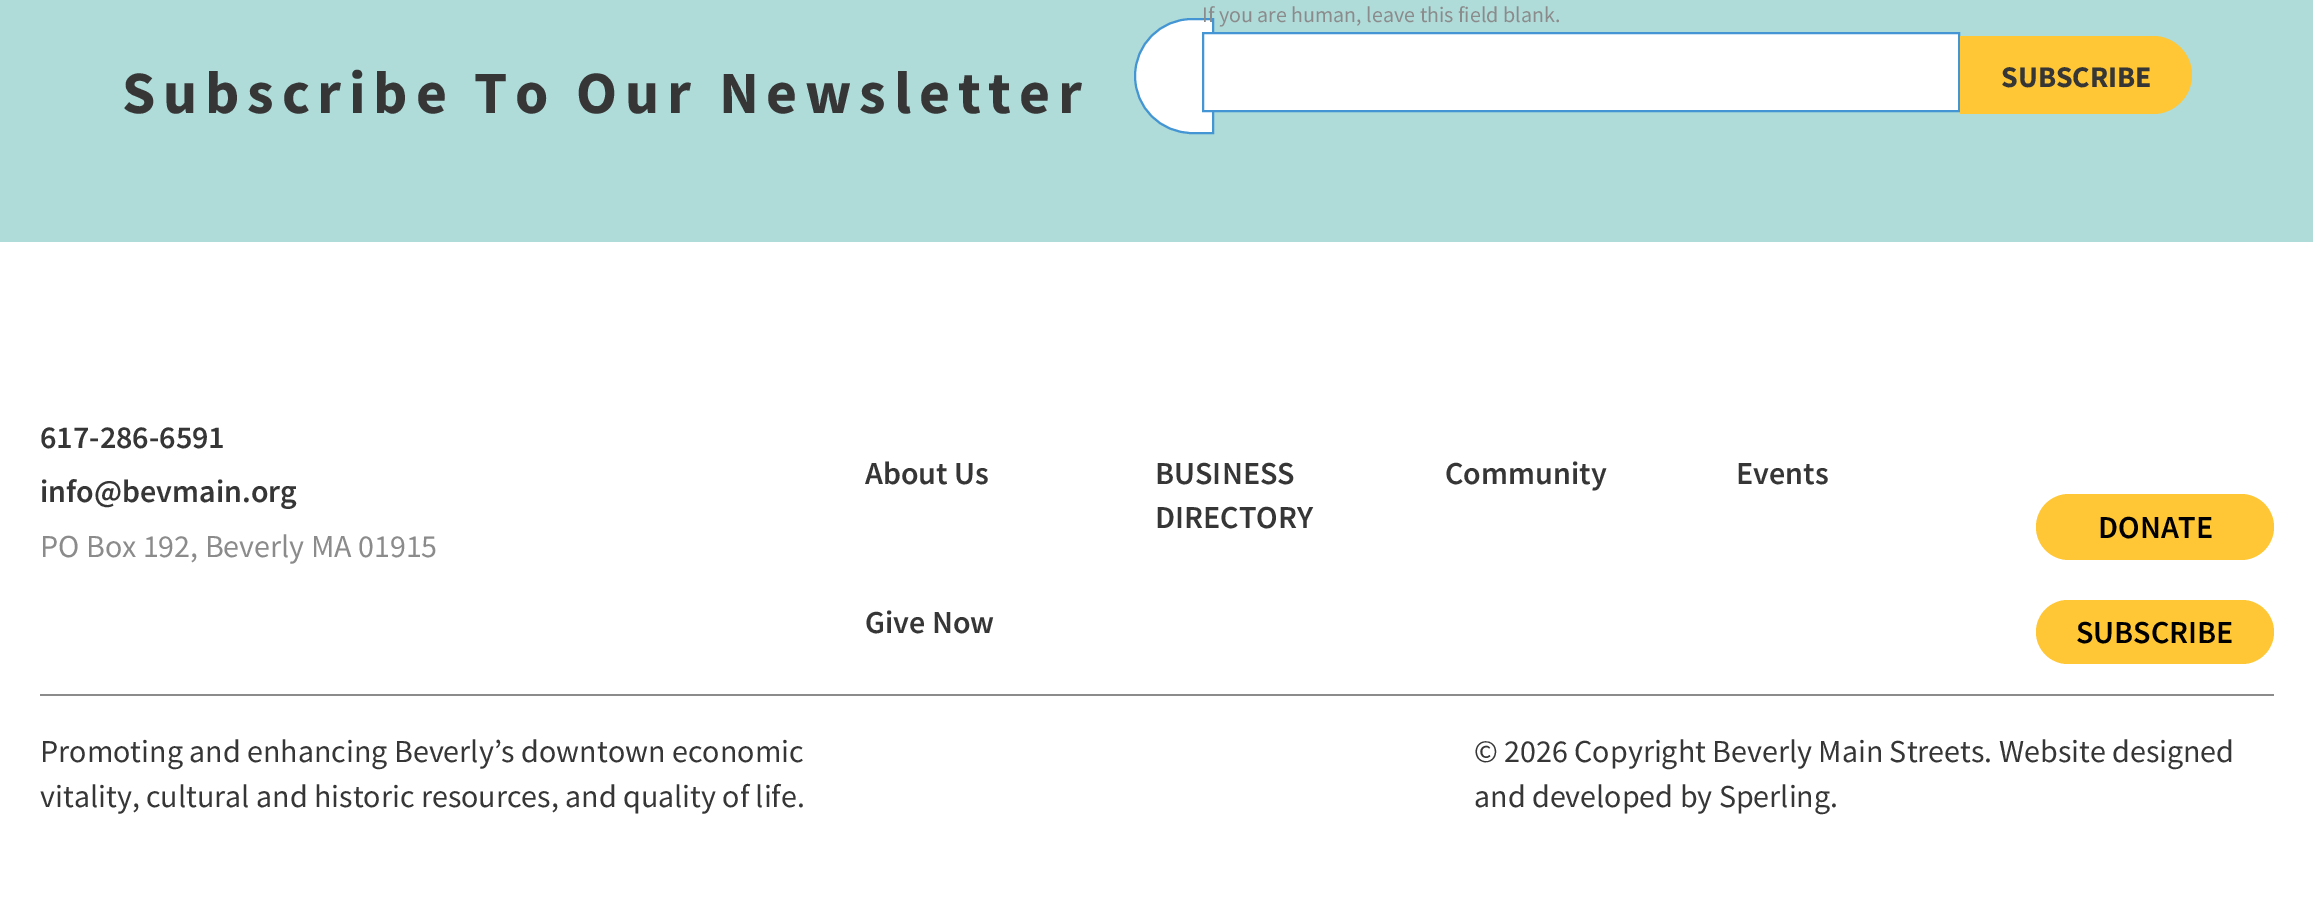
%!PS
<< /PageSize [2313 909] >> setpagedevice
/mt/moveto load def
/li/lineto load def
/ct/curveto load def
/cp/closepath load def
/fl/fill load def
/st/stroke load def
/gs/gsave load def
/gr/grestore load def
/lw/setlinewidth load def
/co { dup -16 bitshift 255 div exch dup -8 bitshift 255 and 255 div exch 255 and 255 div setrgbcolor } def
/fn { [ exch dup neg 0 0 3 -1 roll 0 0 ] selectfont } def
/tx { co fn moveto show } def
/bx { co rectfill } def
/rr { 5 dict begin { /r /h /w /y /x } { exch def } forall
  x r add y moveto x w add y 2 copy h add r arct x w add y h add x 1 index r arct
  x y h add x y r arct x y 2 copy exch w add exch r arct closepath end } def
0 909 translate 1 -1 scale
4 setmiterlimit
0 0 2313 909 16#FFFFFF bx
0 0 2313 242 16#AFDCD9 bx
16#FFFFFF co
1192 19 mt 1213 19 li 1213 133 li 1192 133 li 1160.5 133 1135 107.5 1135 76 ct 1135 44.5 1160.5 19 1192 19 ct cp gs fl gr
16#4395D3 co
2 lw
st
1212 34 746 76 16#FFFFFF bx
16#4395D3 co
1203 33 756 78 rectstroke
16#FFC735 co
1960 36 mt 2153 36 li 2174.5 36 2192 53.5 2192 75 ct 2192 96.5 2174.5 114 2153 114 ct 1960 114 li cp fl
2036 494 238 66 33 rr fl
2036 600 238 64 32 rr fl
40 694 2234 2 16#8B8B8B bx
/SourceSansPro-Bold 60 fn
16#363636 co
122 113 mt 7.8 0 (Subscribe To Our Newsletter) ashow
(If you are human, leave this field blank.) 1202 22 /SourceSansPro-Regular 22 16#8B8B8B tx
(SUBSCRIBE) 2001 87 /SourceSansPro-Bold 30 16#363636 tx
(617-286-6591) 40 448 /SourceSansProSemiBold-SemiBold 32 16#363636 tx
(info@bevmain.org) 40 502 /SourceSansProSemiBold-SemiBold 32 16#363636 tx
(PO Box 192, Beverly MA 01915) 40 557 /SourceSansPro-Regular 32 16#8B8B8B tx
(About Us) 865 484 /SourceSansProSemiBold-SemiBold 32 16#363636 tx
(BUSINESS) 1155 484 /SourceSansProSemiBold-SemiBold 32 16#363636 tx
(DIRECTORY) 1155 528 /SourceSansProSemiBold-SemiBold 32 16#363636 tx
(Community) 1445 484 /SourceSansProSemiBold-SemiBold 32 16#363636 tx
(Events) 1736 484 /SourceSansProSemiBold-SemiBold 32 16#363636 tx
(Give Now) 865 633 /SourceSansProSemiBold-SemiBold 32 16#363636 tx
(DONATE) 2098 538 /SourceSansProSemiBold-SemiBold 32 16#000000 tx
(SUBSCRIBE) 2076 643 /SourceSansProSemiBold-SemiBold 32 16#000000 tx
(Promoting and enhancing Beverly’s downtown economic) 40 762 /SourceSansPro-Regular 32 16#363636 tx
(vitality, cultural and historic resources, and quality of life.) 40 807 /SourceSansPro-Regular 32 16#363636 tx
(© 2026 Copyright Beverly Main Streets. Website designed) 1474 762 /SourceSansPro-Regular 32 16#363636 tx
(and developed by Sperling.) 1474 807 /SourceSansPro-Regular 32 16#363636 tx
showpage
